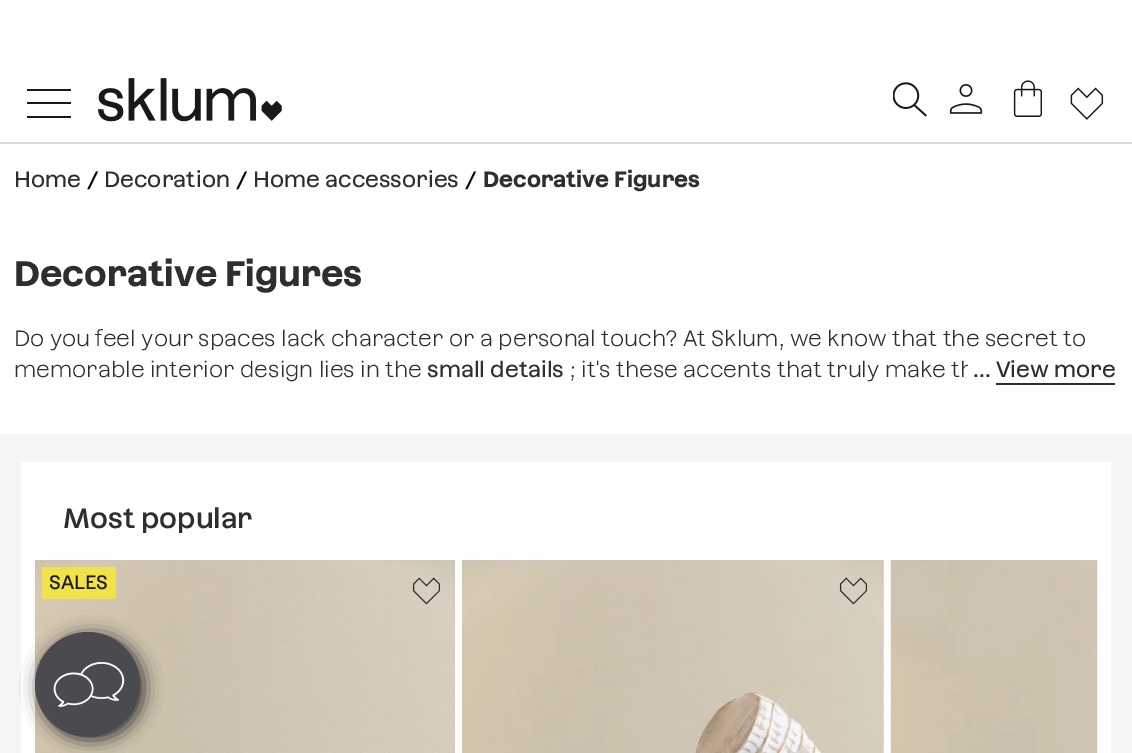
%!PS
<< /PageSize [1132 753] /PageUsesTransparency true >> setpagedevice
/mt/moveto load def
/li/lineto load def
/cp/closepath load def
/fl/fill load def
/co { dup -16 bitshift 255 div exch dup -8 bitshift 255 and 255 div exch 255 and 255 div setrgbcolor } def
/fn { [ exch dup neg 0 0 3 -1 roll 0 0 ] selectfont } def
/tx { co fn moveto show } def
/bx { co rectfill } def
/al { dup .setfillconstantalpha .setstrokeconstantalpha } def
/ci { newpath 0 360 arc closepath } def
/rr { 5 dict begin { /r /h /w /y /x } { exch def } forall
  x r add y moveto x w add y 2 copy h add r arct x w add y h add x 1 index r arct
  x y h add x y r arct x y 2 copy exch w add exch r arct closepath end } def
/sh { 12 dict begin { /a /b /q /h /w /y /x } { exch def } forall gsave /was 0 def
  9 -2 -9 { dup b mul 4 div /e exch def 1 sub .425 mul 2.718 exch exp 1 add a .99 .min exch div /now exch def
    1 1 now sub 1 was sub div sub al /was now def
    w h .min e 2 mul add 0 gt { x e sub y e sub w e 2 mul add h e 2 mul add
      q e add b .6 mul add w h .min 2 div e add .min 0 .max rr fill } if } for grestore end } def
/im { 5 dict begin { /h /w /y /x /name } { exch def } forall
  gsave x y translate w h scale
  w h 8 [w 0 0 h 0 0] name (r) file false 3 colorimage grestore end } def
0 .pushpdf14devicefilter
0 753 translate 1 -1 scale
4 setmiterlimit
0 0 1132 753 16#FFFFFF bx
0 142 1132 2 16#D9D9D9 bx
16#191919 co
27 118 mt 27 116 li 71 116 li 71 118 li cp 27 104 mt 27 102 li 71 102 li 71 104 li cp 27 91 mt 27 89 li 71 89 li 71 91 li cp fl
(media/1.raw) 98 78 184 44 im
(media/2.raw) 893 82 34 35 im
(media/3.raw) 949 84 34 30 im
(media/4.raw) 1013 80 29 37 im
(media/5.raw) 1070 87 34 33 im
996 383 119 2 16#2E2E2E bx
0 434 1132 319 16#F5F5F5 bx
21 462 1090 291 16#FFFFFF bx
(media/6.raw) 35 560 420 193 im
42 567 74 32 16#F0E249 bx
(media/7.raw) 412 577 28 28 im
(media/8.raw) 462 560 422 193 im
(media/9.raw) 839 577 28 28 im
(media/10.raw) 890 560 208 193 im
16#333333 co
39 635 105 105 52.5 9 1 sh
16#4B4A4E co
87.5 684.5 52.5 ci fl
(media/11.raw) 53 662 72 45 im
(Home) 14 187 /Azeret-Regular 22.1 16#2E2E2E tx
(/) 88 187 /Azeret-Regular 22.1 16#000000 tx
(Decoration) 104 187 /Azeret-Regular 22.1 16#2E2E2E tx
(/) 237 187 /Azeret-Regular 22.1 16#000000 tx
(Home accessories) 253 187 /Azeret-Regular 22.1 16#2E2E2E tx
(/) 466 187 /Azeret-Regular 22.1 16#000000 tx
(Decorative Figures) 483 187 /Azeret-Bold 22.1 16#2E2E2E tx
(Decorative Figures) 14 286 /Azeret-Bold 35.5 16#2E2E2E tx
(Do you feel your spaces lack character or a personal touch? At Sklum, we know that the secret to) 14 346 /Azeret-Light 22.1 16#2E2E2E tx
(memorable interior design lies in the) 14 377 /Azeret-Light 22.1 16#2E2E2E tx
(small details) 427 377 /Azeret-Regular 22.1 16#2E2E2E tx
(; it's these accents that truly make th) 570 377 /Azeret-Light 22.1 16#2E2E2E tx
968 364 5 13 16#FFFFFF bx
(... View more) 973 377 /Azeret-Regular 22.1 16#2E2E2E tx
(Most popular) 63 528 /Azeret-Medium 28 16#2E2E2E tx
(SALES) 49 589 /Azeret-Regular 19.5 16#191919 tx
.poppdf14devicefilter showpage
